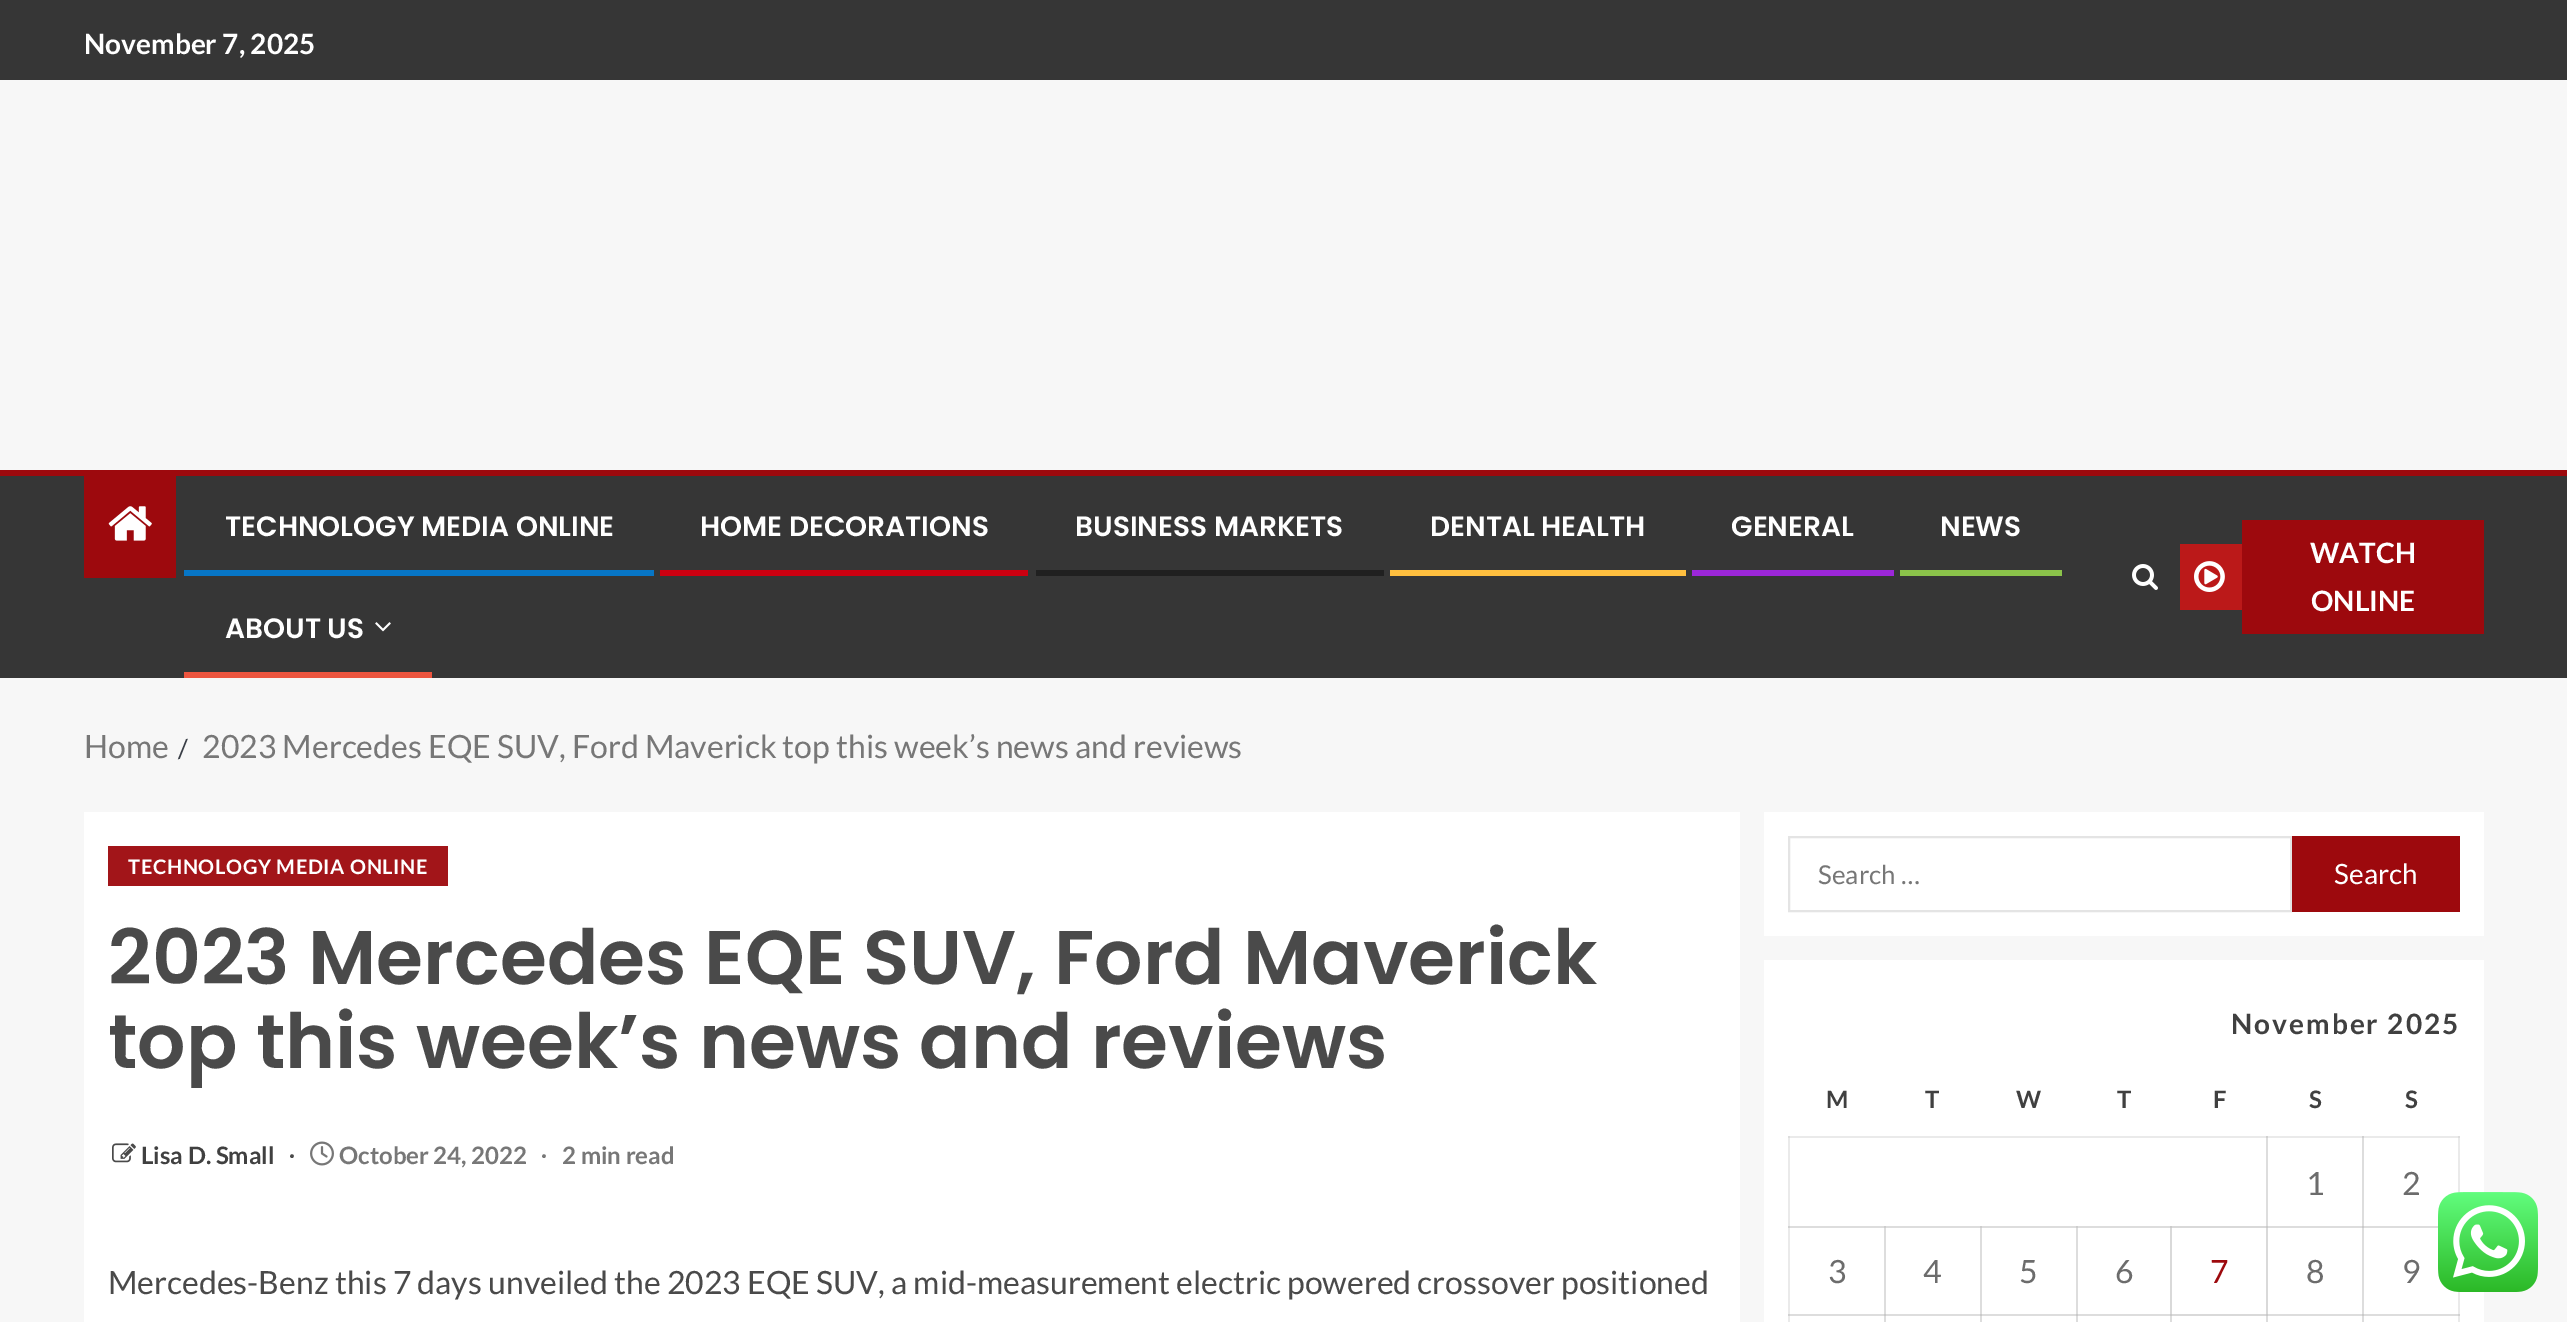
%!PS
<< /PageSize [2567 1322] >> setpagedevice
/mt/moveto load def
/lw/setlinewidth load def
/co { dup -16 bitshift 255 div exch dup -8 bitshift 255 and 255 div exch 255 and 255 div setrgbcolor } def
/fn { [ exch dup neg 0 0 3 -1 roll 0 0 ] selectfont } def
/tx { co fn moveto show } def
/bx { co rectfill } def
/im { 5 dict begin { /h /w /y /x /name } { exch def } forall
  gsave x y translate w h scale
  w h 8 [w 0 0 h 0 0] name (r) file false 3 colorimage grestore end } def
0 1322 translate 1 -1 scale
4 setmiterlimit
0 0 2567 1322 16#F7F7F7 bx
0 0 2567 80 16#363636 bx
0 476 2567 202 16#363636 bx
0 470 2567 6 16#9D090D bx
84 476 92 102 16#9D090D bx
(media/1.raw) 108 506 44 35 im
184 570 470 6 16#0776C6 bx
660 570 368 6 16#CC0010 bx
1036 570 348 6 16#202020 bx
1390 570 296 6 16#FFBF3F bx
1692 570 202 6 16#9C27D9 bx
1900 570 162 6 16#8BC34A bx
(media/2.raw) 375 622 16 10 im
184 672 248 6 16#ED553F bx
(media/3.raw) 2132 564 26 26 im
2180 544 62 66 16#BB1919 bx
(media/4.raw) 2194 561 31 31 im
2242 520 242 114 16#9D090D bx
84 812 1656 510 16#FFFFFF bx
108 846 340 40 16#A21519 bx
(media/5.raw) 112 1143 24 20 im
(media/6.raw) 310 1141 24 25 im
1764 812 720 124 16#FFFFFF bx
16#E4E4E4 co
2 lw
1789 837 502 74 rectstroke
2292 836 168 76 16#9D090D bx
1764 960 720 362 16#FFFFFF bx
1788 1136 2 186 16#EAEAEA bx
1788 1136 480 2 16#EAEAEA bx
1788 1136 2 2 16#DDDDDD bx
2266 1136 2 92 16#DDDDDD bx
2266 1136 98 2 16#EAEAEA bx
2266 1136 2 2 16#D0D0D0 bx
2362 1136 2 92 16#DDDDDD bx
2458 1136 2 57 16#EAEAEA bx
1788 1226 98 2 16#DDDDDD bx
1788 1226 2 2 16#D0D0D0 bx
1884 1226 2 90 16#DDDDDD bx
1884 1226 98 2 16#DDDDDD bx
1884 1226 2 2 16#CDCDCD bx
1980 1226 2 90 16#DDDDDD bx
1980 1226 98 2 16#DDDDDD bx
1980 1226 2 2 16#CDCDCD bx
2076 1226 2 90 16#DDDDDD bx
2076 1226 96 2 16#DDDDDD bx
2076 1226 2 2 16#CDCDCD bx
2170 1226 2 90 16#D9D9D9 bx
2170 1226 98 2 16#D9D9D9 bx
2170 1226 2 2 16#CBCBCB bx
2266 1226 2 90 16#D9D9D9 bx
2266 1226 98 2 16#DDDDDD bx
2266 1226 2 2 16#C9C9C9 bx
2362 1226 2 90 16#DDDDDD bx
2458 1291 2 31 16#EAEAEA bx
1788 1314 98 2 16#DDDDDD bx
1788 1314 2 2 16#D1D1D1 bx
1884 1314 2 8 16#DDDDDD bx
1884 1314 98 2 16#DDDDDD bx
1884 1314 2 2 16#C9C9C9 bx
1980 1314 2 8 16#DDDDDD bx
1980 1314 98 2 16#DDDDDD bx
1980 1314 2 2 16#C9C9C9 bx
2076 1314 2 8 16#DDDDDD bx
2076 1314 96 2 16#DDDDDD bx
2076 1314 2 2 16#C9C9C9 bx
2170 1314 2 8 16#DDDDDD bx
2170 1314 98 2 16#D9D9D9 bx
2170 1314 2 2 16#C9C9C9 bx
2266 1314 2 8 16#DDDDDD bx
2266 1314 98 2 16#DDDDDD bx
2266 1314 2 2 16#C9C9C9 bx
2362 1314 2 8 16#DDDDDD bx
2362 1136 98 2 16#EAEAEA bx
2362 1136 2 2 16#D0D0D0 bx
2458 1136 2 2 16#DDDDDD bx
2362 1226 76 2 16#DDDDDD bx
2362 1226 2 2 16#C9C9C9 bx
2362 1314 98 2 16#DDDDDD bx
2362 1314 2 2 16#C9C9C9 bx
2458 1314 2 2 16#D1D1D1 bx
(media/7.raw) 2438 1192 100 100 im
(November 7, 2025) 84 54 /Lato-Bold 28 16#FFFFFF tx
(TECHNOLOGY MEDIA ONLINE) 225 536 /Poppins-SemiBold 28 16#FFFFFF tx
(HOME DECORATIONS) 700 536 /Poppins-SemiBold 28 16#FFFFFF tx
(BUSINESS MARKETS) 1075 536 /Poppins-SemiBold 28 16#FFFFFF tx
(DENTAL HEALTH) 1430 536 /Poppins-SemiBold 28 16#FFFFFF tx
(GENERAL) 1731 536 /Poppins-SemiBold 28 16#FFFFFF tx
(NEWS) 1940 536 /Poppins-SemiBold 28 16#FFFFFF tx
(ABOUT US) 225 638 /Poppins-SemiBold 28 16#FFFFFF tx
(WATCH) 2310 563 /Lato-Bold 28 16#FFFFFF tx
(ONLINE) 2311 611 /Lato-Bold 28 16#FFFFFF tx
(Home) 84 758 /Lato-Regular 32 16#777777 tx
(/) 178 758 /Lato-Regular 26 16#393E46 tx
(2023 Mercedes EQE SUV, Ford Maverick top this week’s news and reviews) 202 758 /Lato-Regular 32 16#777777 tx
/Lato-Bold 20 fn
16#FFFFFF co
128 874 mt .7 0 (TECHNOLOGY MEDIA ONLINE) ashow
(2023 Mercedes EQE SUV, Ford Maverick) 108 984 /Poppins-SemiBold 76 16#4A4A4A tx
(top this week’s news and reviews) 108 1068 /Poppins-SemiBold 76 16#4A4A4A tx
(Lisa D. Small) 141 1164 /Lato-Bold 24 16#404040 tx
(∙) 289 1164 /LiberationSerif-Bold 24 16#4A4A4A tx
(October 24, 2022) 339 1164 /Lato-Bold 24 16#777777 tx
(∙) 541 1164 /LiberationSerif-Bold 24 16#777777 tx
(2 min read) 562 1164 /Lato-Bold 24 16#777777 tx
(Mercedes-Benz this 7 days unveiled the 2023 EQE SUV, a mid-measurement electric powered crossover positioned) 108 1294 /Lato-Regular 32 16#4A4A4A tx
(Search …) 1818 884 /Lato-Regular 26 16#777777 tx
(Search) 2334 884 /Lato-Regular 28 16#FFFFFF tx
/Lato-Bold 28 fn
16#404040 co
2231 1034 mt 2 0 (November 2025) ashow
(M) 1826 1108 /Lato-Bold 24 16#404040 tx
(T) 1925 1108 /Lato-Bold 24 16#404040 tx
(W) 2016 1108 /Lato-Bold 24 16#404040 tx
(T) 2117 1108 /Lato-Bold 24 16#404040 tx
(F) 2213 1108 /Lato-Bold 24 16#404040 tx
(S) 2309 1108 /Lato-Bold 24 16#404040 tx
(S) 2405 1108 /Lato-Bold 24 16#404040 tx
(1) 2306 1195 /Lato-Regular 32 16#6C6C6C tx
(2) 2402 1195 /Lato-Regular 32 16#6C6C6C tx
(3) 1828 1283 /Lato-Regular 32 16#6C6C6C tx
(4) 1923 1283 /Lato-Regular 32 16#6C6C6C tx
(5) 2019 1283 /Lato-Regular 32 16#6C6C6C tx
(6) 2115 1283 /Lato-Regular 32 16#6C6C6C tx
(7) 2210 1283 /Lato-Regular 32 16#9D090D tx
(8) 2306 1283 /Lato-Regular 32 16#6C6C6C tx
(9) 2402 1283 /Lato-Regular 32 16#6C6C6C tx
showpage
